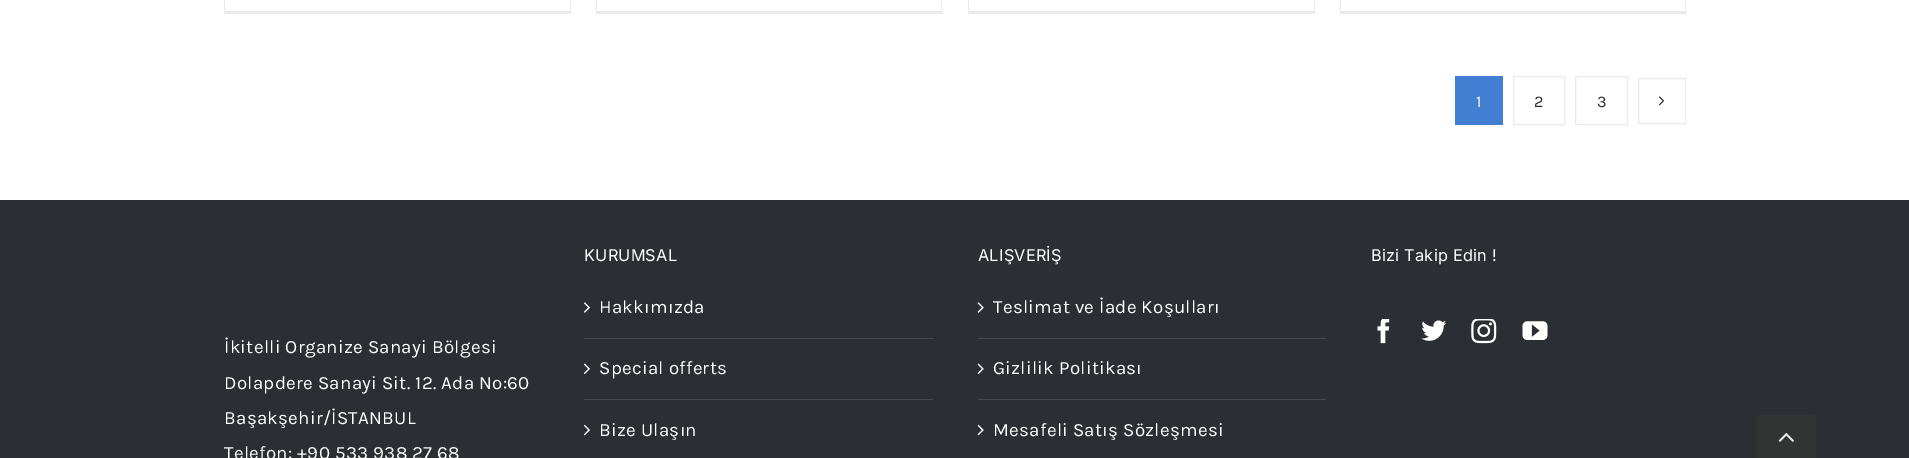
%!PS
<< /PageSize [1909 458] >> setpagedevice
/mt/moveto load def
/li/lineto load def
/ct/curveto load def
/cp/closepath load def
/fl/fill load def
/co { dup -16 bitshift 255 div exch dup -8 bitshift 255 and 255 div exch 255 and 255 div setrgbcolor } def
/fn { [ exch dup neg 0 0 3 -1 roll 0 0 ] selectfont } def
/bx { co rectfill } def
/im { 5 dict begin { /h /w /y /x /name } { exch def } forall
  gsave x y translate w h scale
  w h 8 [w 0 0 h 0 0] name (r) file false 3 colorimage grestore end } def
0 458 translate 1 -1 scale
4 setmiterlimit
0 0 1909 458 16#FFFFFF bx
570 0 1 14 16#EAEAEA bx
224 11 347 3 16#EAEAEA bx
224 0 1 14 16#EAEAEA bx
941 0 1 14 16#EAEAEA bx
596 11 347 3 16#EAEAEA bx
596 0 1 14 16#EAEAEA bx
1314 0 1 14 16#EAEAEA bx
968 11 347 3 16#EAEAEA bx
968 0 1 14 16#EAEAEA bx
1685 0 1 14 16#EAEAEA bx
1340 11 346 3 16#EAEAEA bx
1340 0 1 14 16#EAEAEA bx
1455 76 48 49 16#427ED1 bx
16#EAEAEA co
1513.5 76.5 51 48 rectstroke
1575.5 76.5 52 48 rectstroke
1638.5 78.5 47 45 rectstroke
(media/1.raw) 1658 96 7 10 im
0 200 1909 258 16#2B2E32 bx
584 338 349 1 16#494949 bx
(media/2.raw) 583 302 7 11 im
584 399 349 1 16#494949 bx
(media/3.raw) 583 363 7 11 im
(media/4.raw) 583 424 7 12 im
978 338 348 1 16#494949 bx
(media/5.raw) 977 302 7 11 im
978 399 348 1 16#494949 bx
(media/6.raw) 977 363 7 11 im
(media/7.raw) 977 424 7 12 im
(media/8.raw) 1377 319 13 25 im
(media/9.raw) 1421 320 25 21 im
(media/10.raw) 1471 319 26 25 im
(media/11.raw) 1522 321 26 19 im
16#323333 co
1761 415 mt 1811 415 li 1814 415 1816 417 1816 420 ct 1816 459 li 1756 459 li 1756 420 li 1756 417 1758 415 1761 415 ct cp fl
(media/12.raw) 1778 433 16 9 im
/Karla-Regular 16.25 fn
16#FFFFFF co
1476 107 mt .3 0 (1) ashow
16#2B2E32 co
1534 107 mt .3 0 (2) ashow
1597 107 mt .3 0 (3) ashow
/Karla-Regular 18.75 fn
16#FFFFFF co
224 353 mt .3 0 (İkitelli Organize Sanayi Bölgesi) ashow
224 389 mt .3 0 (Dolapdere Sanayi Sit. 12. Ada No:60) ashow
224 424 mt .3 0 (Başakşehir/İSTANBUL) ashow
224 459 mt .3 0 (Telefon: +90 533 938 27 68) ashow
/Inter-Regular 16.25 fn
584 261 mt .25 0 (KURUMSAL) ashow
/Karla-Regular 18.75 fn
599 313 mt .3 0 (Hakkımızda) ashow
599 374 mt .3 0 (Special offerts) ashow
599 436 mt .3 0 (Bize Ulaşın) ashow
/Inter-Regular 16.25 fn
978 261 mt .25 0 (ALIŞVERİŞ) ashow
/Karla-Regular 18.75 fn
993 313 mt .3 0 (Teslimat ve İade Koşulları) ashow
993 374 mt .3 0 (Gizlilik Politikası) ashow
993 436 mt .3 0 (Mesafeli Satış Sözleşmesi) ashow
/Inter-Regular 16.25 fn
1371 261 mt .25 0 (Bizi Takip Edin !) ashow
showpage
